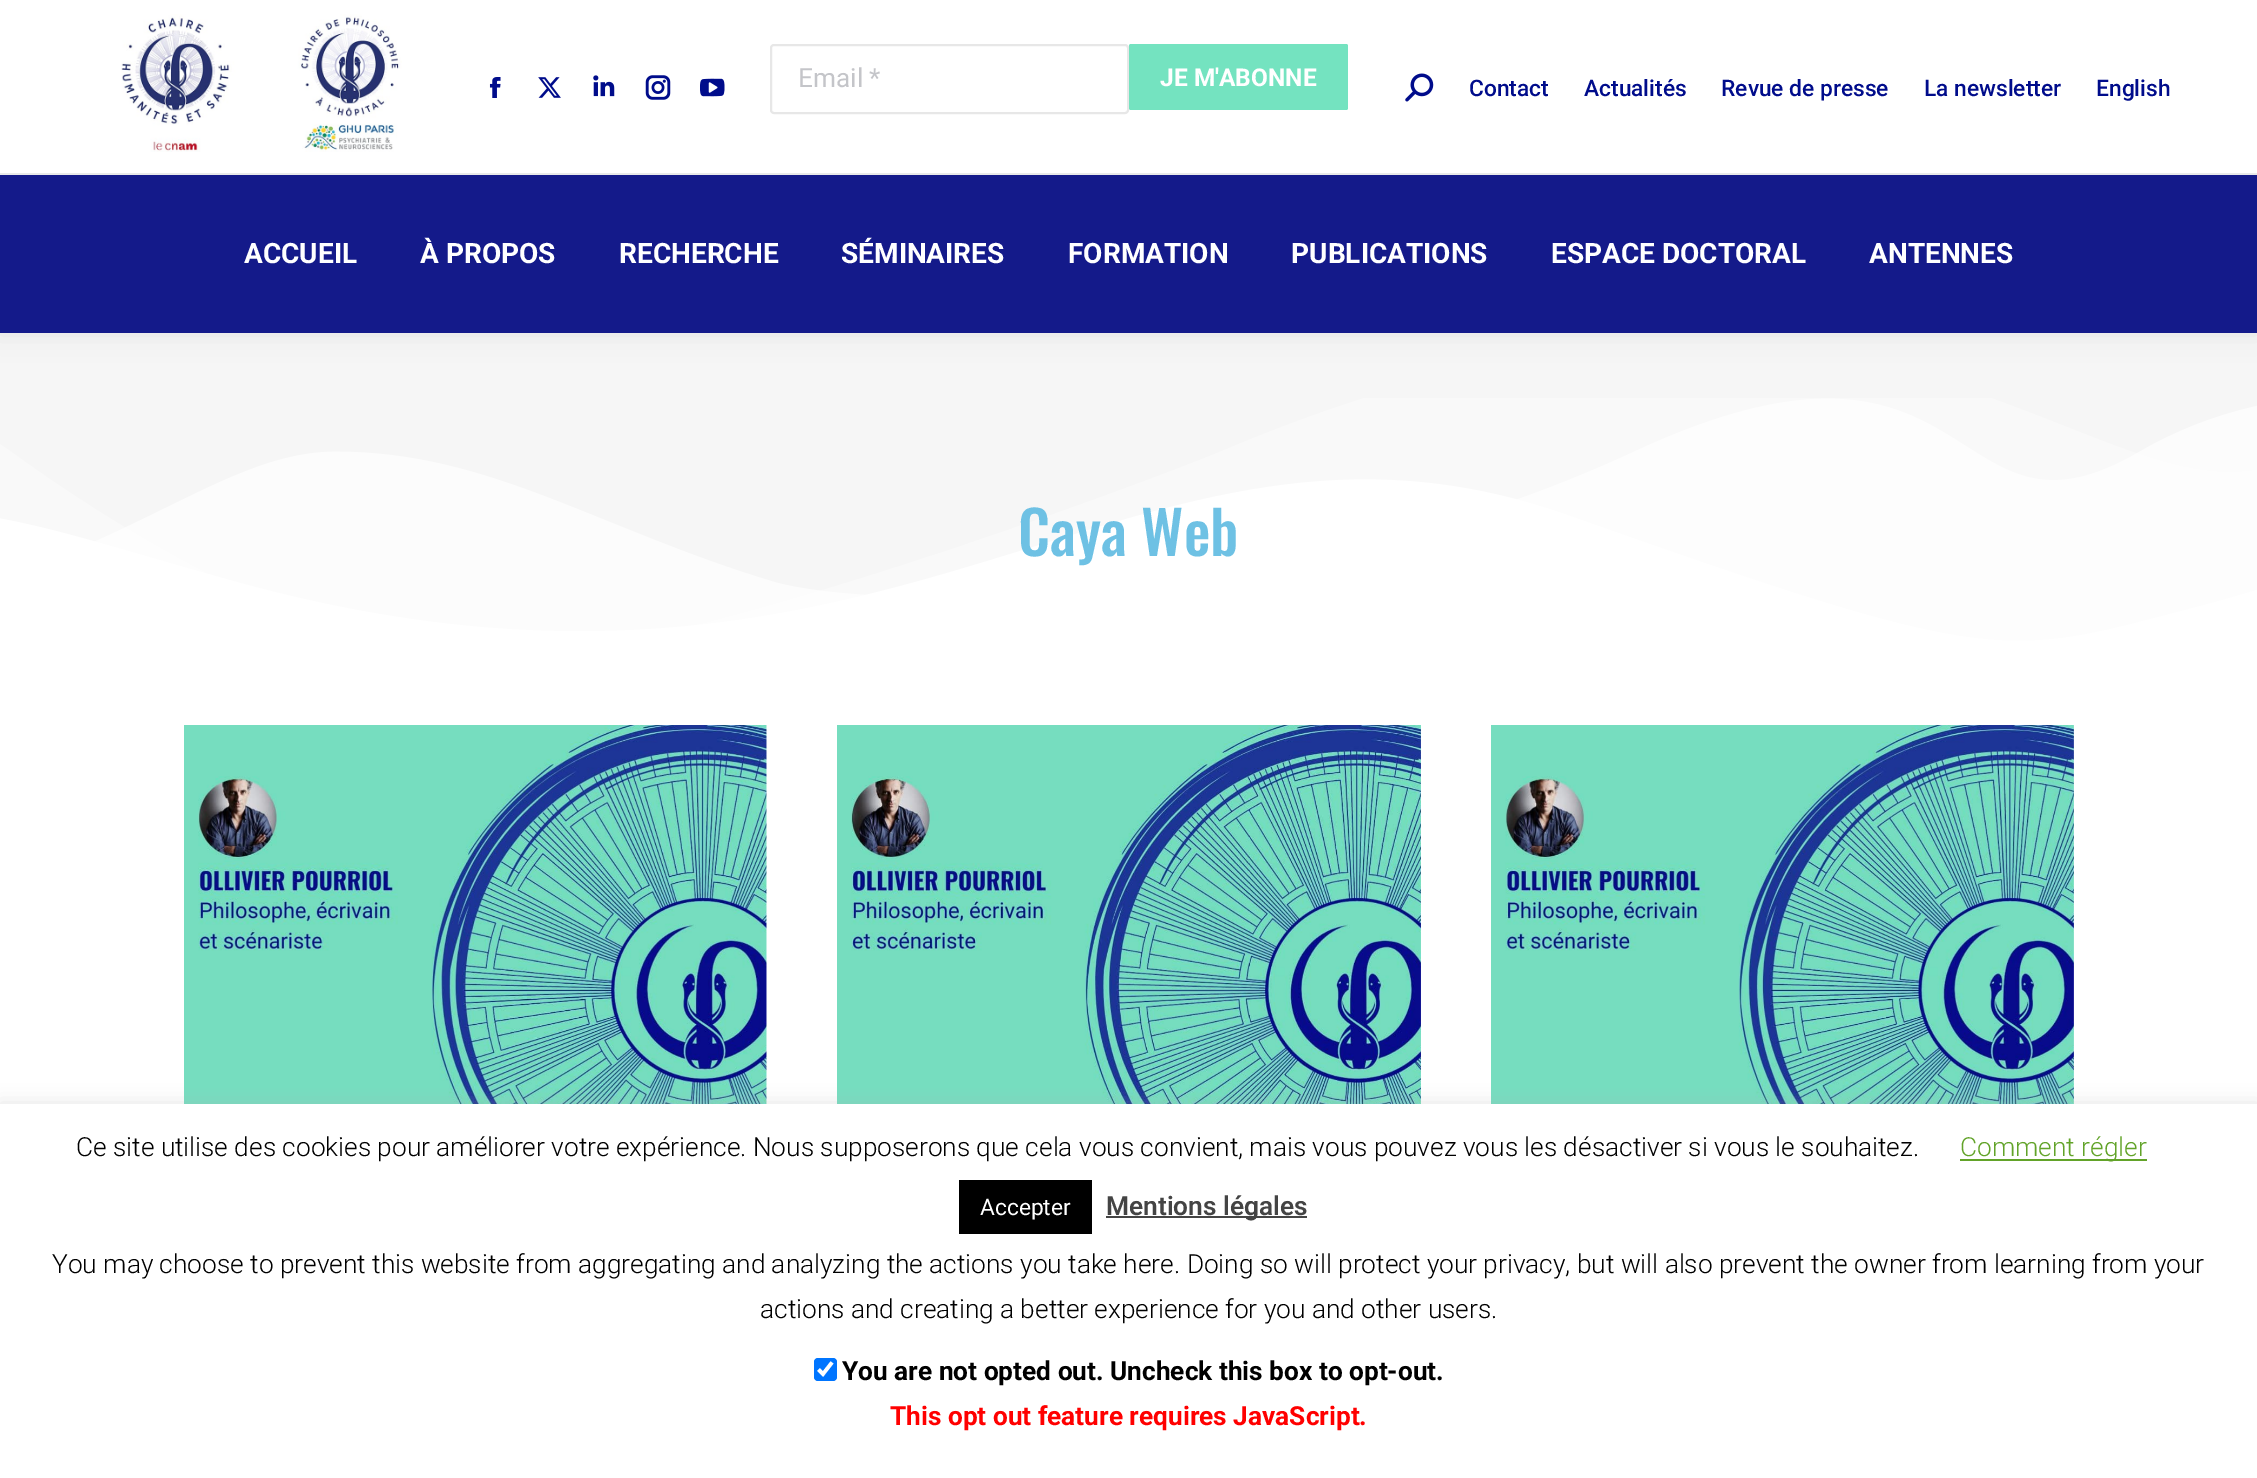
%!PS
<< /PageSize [2257 1478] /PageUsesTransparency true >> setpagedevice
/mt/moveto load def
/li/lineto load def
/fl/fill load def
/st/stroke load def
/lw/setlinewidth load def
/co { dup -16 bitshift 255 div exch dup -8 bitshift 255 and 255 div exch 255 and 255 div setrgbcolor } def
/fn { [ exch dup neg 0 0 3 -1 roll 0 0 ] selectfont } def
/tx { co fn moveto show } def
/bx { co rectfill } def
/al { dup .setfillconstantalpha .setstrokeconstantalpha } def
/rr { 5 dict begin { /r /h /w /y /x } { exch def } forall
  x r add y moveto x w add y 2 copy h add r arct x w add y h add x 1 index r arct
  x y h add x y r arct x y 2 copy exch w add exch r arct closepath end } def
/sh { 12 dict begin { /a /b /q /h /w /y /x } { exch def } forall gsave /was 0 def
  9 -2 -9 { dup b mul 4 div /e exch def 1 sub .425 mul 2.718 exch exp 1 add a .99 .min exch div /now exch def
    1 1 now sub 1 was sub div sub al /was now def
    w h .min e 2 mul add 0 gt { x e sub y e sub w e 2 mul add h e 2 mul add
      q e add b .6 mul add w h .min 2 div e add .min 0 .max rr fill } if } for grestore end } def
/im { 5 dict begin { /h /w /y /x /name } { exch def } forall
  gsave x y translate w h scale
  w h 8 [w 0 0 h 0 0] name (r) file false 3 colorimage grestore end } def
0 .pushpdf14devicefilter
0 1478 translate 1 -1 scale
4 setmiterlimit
0 0 2257 1478 16#FFFFFF bx
0 333 2257 308 16#F6F6F6 bx
16#000000 co
-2 -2 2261 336 0 13 .07 sh
0 175 2257 158 16#141A8A bx
0 0 2257 173 16#FFFFFF bx
(media/1.raw) 121 14 281 138 im
(media/2.raw) 489 77 12 21 im
(media/3.raw) 538 77 23 21 im
(media/4.raw) 593 75 22 22 im
(media/5.raw) 645 75 26 25 im
(media/6.raw) 700 78 25 19 im
16#E7E7E7 co
2 lw
771 45 357 68 3 rr st
16#74E3C0 co
1129 44 219 66 2 rr fl
(media/7.raw) 1405 73 29 29 im
0 173 2257 2 16#E9E9E9 bx
(media/8.raw) 0 398 2257 274 im
(media/9.raw) 184 725 583 379 im
(media/10.raw) 837 725 584 379 im
(media/11.raw) 1491 725 583 379 im
16#ACABAB co
0 1103 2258 374 0 9 .3 sh
0 1104 2257 374 16#FFFFFF bx
1960 1159 187 2 16#62A329 bx
959 1180 133 54 16#000000 bx
1106 1216 201 2 16#444444 bx
16#0075FF co
814 1358 23 23 4 rr fl
16#FFFFFF co
3.6 lw
818.5 1369.5 mt 823 1374 li 832 1362.5 li st
(Email *) 798 87 /Roboto-Regular 26.25 16#C4C5C9 tx
(JE M'ABONNE) 1160 86 /Roboto-Bold 24.5 16#FFFFFF tx
(Contact) 1469 96 /Roboto-Medium 22.75 16#000C8B tx
(Actualités) 1584 96 /Roboto-Medium 22.75 16#000C8B tx
(Revue de presse) 1721 96 /Roboto-Medium 22.75 16#000C8B tx
(La newsletter) 1924 96 /Roboto-Medium 22.75 16#000C8B tx
(English) 2096 96 /Roboto-Medium 22.75 16#000C8B tx
(ACCUEIL) 244 263 /Roboto-Bold 28 16#FFFFFF tx
(À PROPOS) 420 263 /Roboto-Bold 28 16#FFFFFF tx
(RECHERCHE) 619 263 /Roboto-Bold 28 16#FFFFFF tx
(SÉMINAIRES) 841 263 /Roboto-Bold 28 16#FFFFFF tx
(FORMATION) 1068 263 /Roboto-Bold 28 16#FFFFFF tx
(PUBLICATIONS) 1291 263 /Roboto-Bold 28 16#FFFFFF tx
(ESPACE DOCTORAL) 1551 263 /Roboto-Bold 28 16#FFFFFF tx
(ANTENNES) 1869 263 /Roboto-Bold 28 16#FFFFFF tx
(Caya Web) 1018 556 /Oswald-Medium 59.5 16#6EC1E4 tx
(Ce site utilise des cookies pour améliorer votre expérience. Nous supposerons que cela vous convient, mais vous pouvez vous les désactiver si vous le souhaitez.) 76 1156 /Roboto-Light 26.25 16#000000 tx
(Comment régler) 1960 1156 /Roboto-Light 26.25 16#62A329 tx
(Accepter) 980 1215 /Roboto-Regular 22.75 16#FFFFFF tx
(Mentions légales) 1106 1215 /Roboto-SemiBold 26.25 16#444444 tx
(You may choose to prevent this website from aggregating and analyzing the actions you take here. Doing so will protect your privacy, but will also prevent the owner from learning from your) 52 1273 /Roboto-Light 26.25 16#000000 tx
(actions and creating a better experience for you and other users.) 760 1318 /Roboto-Light 26.25 16#000000 tx
(You are not opted out. Uncheck this box to opt-out.) 842 1380 /Roboto-Bold 26.25 16#000000 tx
(This opt out feature requires JavaScript.) 890 1425 /Roboto-Bold 26.25 16#FF0000 tx
.poppdf14devicefilter showpage
